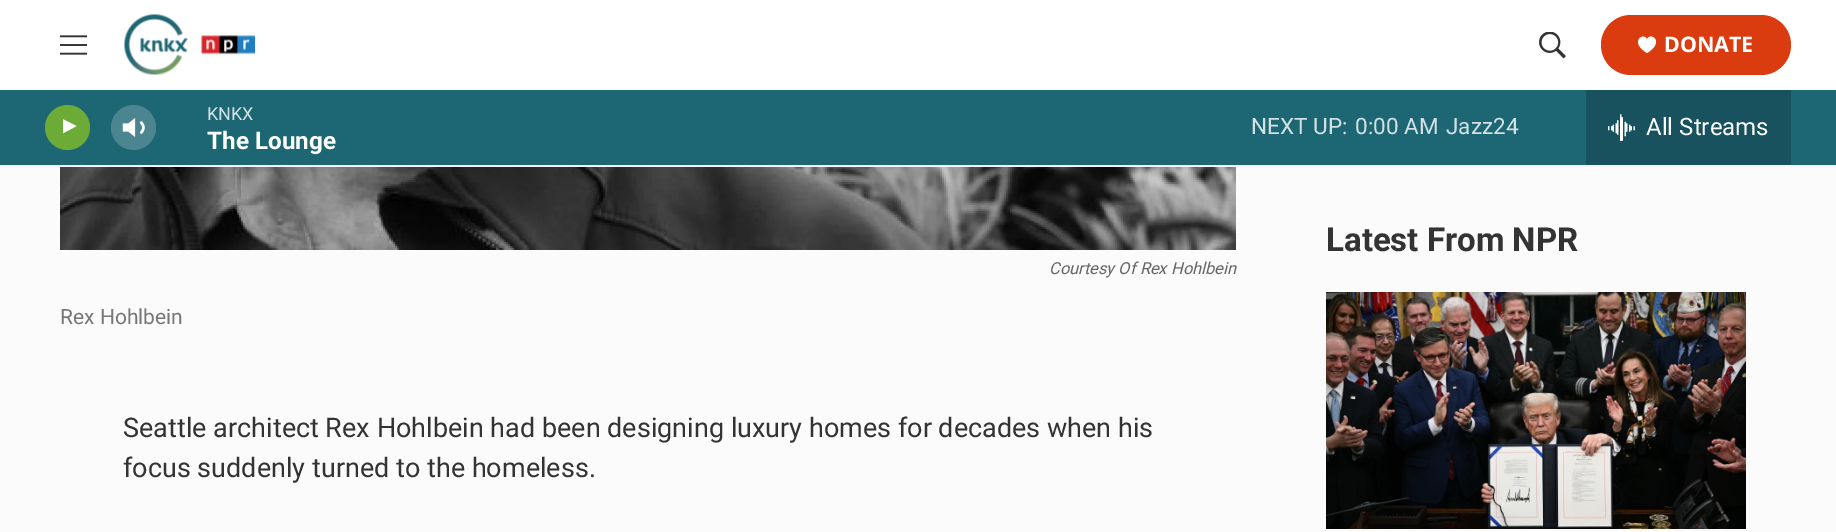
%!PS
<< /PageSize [1836 532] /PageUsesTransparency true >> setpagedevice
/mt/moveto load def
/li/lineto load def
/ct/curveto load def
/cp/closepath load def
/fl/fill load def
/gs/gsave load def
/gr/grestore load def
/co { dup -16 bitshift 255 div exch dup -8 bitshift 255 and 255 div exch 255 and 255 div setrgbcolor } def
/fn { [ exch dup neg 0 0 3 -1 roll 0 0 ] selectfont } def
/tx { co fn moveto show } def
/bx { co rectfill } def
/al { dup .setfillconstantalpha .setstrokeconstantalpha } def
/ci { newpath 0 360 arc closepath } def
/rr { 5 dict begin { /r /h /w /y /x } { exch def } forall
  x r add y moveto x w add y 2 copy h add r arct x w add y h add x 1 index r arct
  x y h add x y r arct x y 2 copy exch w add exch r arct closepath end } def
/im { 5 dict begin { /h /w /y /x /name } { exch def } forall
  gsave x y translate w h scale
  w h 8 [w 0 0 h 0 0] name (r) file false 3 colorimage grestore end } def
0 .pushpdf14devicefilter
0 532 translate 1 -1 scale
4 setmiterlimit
0 0 1836 532 16#FBFBFB bx
0 0 1836 90 16#FFFFFF bx
0 165 1836 2 16#F5F5F5 bx
(media/1.raw) 60 35 27 20 im
(media/2.raw) 124 14 131 61 im
(media/3.raw) 1539 32 27 27 im
16#DB3C0F co
1601 15 190 60 30 rr fl
16#FFFFFF co
1647 39.5 mt 1644 31.5 1628.5 41.5 1647 53 ct 1665.5 41.5 1650 31.5 1647 39.5 ct cp fl
0 90 1836 75 16#1D6775 bx
16#6CAB36 co
67.5 127.5 22.5 ci fl
gs
63 117 17 23 rectclip
16#FFFFFF co
62.5 119 mt 76.5 126 li 62.5 133.5 li cp fl
gr
(media/4.raw) 122 118 23 19 im
0.2 al
16#FFFFFF co
133.5 127.5 22.5 ci fl
1 al
1586 90 205 75 16#17525E bx
(media/5.raw) 1608 114 27 27 im
(media/6.raw) 1326 292 420 237 im
(media/7.raw) 60 167 1176 83 im
(DONATE) 1664 52 /NotoSans-Bold 21.5 16#FFFFFF tx
(KNKX) 207 120 /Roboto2-Regular 18 16#D2E1E3 tx
(The Lounge) 207 149 /Roboto2-Bold 24.25 16#FFFFFF tx
(NEXT UP:) 1251 134 /Roboto2-Regular 22.5 16#D2E1E3 tx
(0:00 AM) 1355 134 /Roboto2-Regular 22.5 16#D2E1E3 tx
(Jazz24) 1446 134 /Roboto2-Regular 22.5 16#D2E1E3 tx
(All Streams) 1646 135 /Roboto2-Regular 24 16#FFFFFF tx
(Latest From NPR) 1326 251 /Roboto-Bold 33 16#333333 tx
(Courtesy Of Rex Hohlbein) 1049 274 /Roboto-Italic 16.5 16#666666 tx
(Rex Hohlbein) 60 324 /Roboto-Regular 21 16#767676 tx
(Seattle architect Rex Hohlbein had been designing luxury homes for decades when his) 123 437 /Roboto2-Regular 27 16#333333 tx
(focus suddenly turned to the homeless.) 123 477 /Roboto2-Regular 27 16#333333 tx
.poppdf14devicefilter showpage
